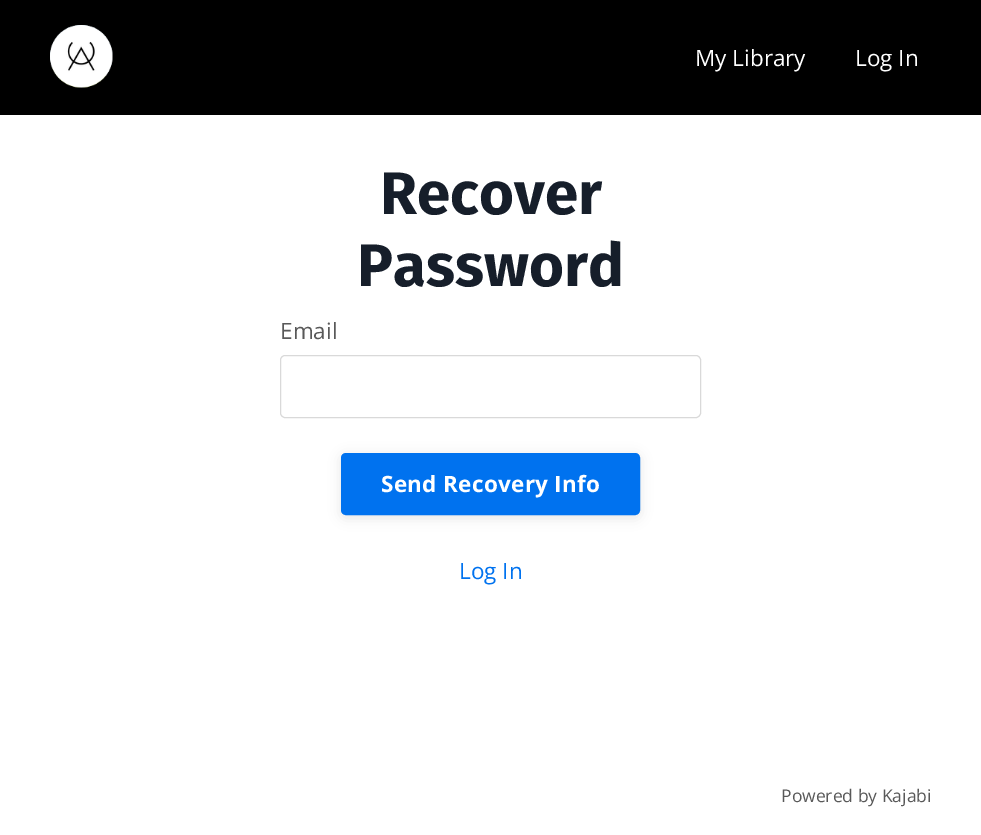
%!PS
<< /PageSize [981 835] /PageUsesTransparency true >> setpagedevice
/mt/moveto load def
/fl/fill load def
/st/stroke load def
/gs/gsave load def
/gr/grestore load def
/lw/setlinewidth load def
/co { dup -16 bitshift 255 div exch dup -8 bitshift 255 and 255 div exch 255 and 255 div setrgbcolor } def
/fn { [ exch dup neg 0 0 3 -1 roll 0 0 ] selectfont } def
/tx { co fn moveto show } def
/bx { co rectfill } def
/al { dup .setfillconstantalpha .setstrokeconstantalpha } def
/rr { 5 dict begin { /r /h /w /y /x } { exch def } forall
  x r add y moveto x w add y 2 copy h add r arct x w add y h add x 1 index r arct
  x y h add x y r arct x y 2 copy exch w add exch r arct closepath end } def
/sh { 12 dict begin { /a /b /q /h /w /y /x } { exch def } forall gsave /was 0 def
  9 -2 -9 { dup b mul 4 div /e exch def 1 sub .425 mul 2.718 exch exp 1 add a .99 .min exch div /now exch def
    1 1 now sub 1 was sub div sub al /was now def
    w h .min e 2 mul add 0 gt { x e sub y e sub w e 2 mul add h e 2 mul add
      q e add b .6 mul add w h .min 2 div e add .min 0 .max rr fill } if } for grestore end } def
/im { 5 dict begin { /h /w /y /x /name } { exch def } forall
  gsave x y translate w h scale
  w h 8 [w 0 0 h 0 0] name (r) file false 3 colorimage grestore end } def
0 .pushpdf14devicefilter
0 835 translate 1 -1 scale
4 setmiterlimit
0 0 981 835 16#FFFFFF bx
0 0 981 115 16#000000 bx
(media/1.raw) 50 25 63 63 im
16#D9D9D9 co
280.5 355.5 420 62 4.5 rr st
16#000000 co
341 455 299 63 5 6 .1 sh
16#0072EF co
342.5 454.5 296 59 3.5 rr gs fl gr
3 lw
st
(My Library) 695 66 /OpenSans-Regular 22.5 16#FFFFFF tx
(Log In) 855 66 /OpenSans-Regular 22.5 16#FFFFFF tx
(Recover) 380 214 /FiraSans-Bold 60 16#161E2A tx
(Password) 357 286 /FiraSans-Bold 60 16#161E2A tx
(Email) 280 339 /OpenSans-Regular 22.5 16#595959 tx
/OpenSans-Bold 22.5 fn
16#FFFFFF co
381 492 mt .3 0 (Send Recovery Info) ashow
(Log In) 459 579 /OpenSans-Regular 22.5 16#0072EF tx
(Powered by Kajabi) 781 802 /OpenSans-Regular 17.5 16#595959 tx
.poppdf14devicefilter showpage
